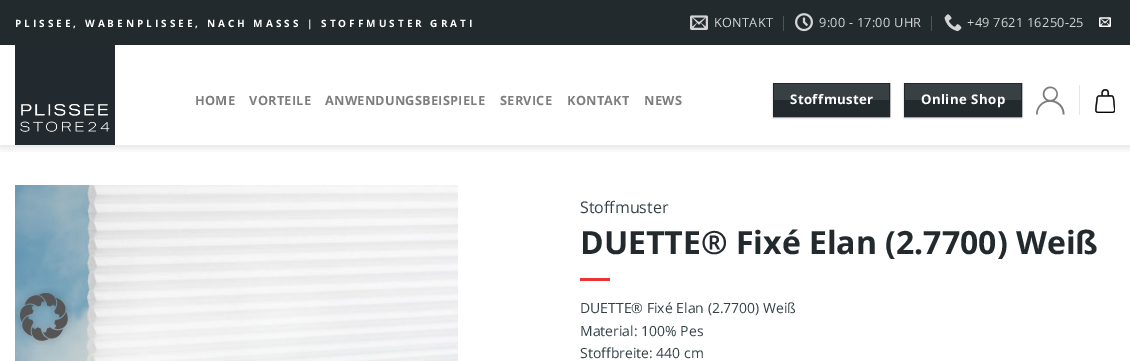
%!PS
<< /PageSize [1130 361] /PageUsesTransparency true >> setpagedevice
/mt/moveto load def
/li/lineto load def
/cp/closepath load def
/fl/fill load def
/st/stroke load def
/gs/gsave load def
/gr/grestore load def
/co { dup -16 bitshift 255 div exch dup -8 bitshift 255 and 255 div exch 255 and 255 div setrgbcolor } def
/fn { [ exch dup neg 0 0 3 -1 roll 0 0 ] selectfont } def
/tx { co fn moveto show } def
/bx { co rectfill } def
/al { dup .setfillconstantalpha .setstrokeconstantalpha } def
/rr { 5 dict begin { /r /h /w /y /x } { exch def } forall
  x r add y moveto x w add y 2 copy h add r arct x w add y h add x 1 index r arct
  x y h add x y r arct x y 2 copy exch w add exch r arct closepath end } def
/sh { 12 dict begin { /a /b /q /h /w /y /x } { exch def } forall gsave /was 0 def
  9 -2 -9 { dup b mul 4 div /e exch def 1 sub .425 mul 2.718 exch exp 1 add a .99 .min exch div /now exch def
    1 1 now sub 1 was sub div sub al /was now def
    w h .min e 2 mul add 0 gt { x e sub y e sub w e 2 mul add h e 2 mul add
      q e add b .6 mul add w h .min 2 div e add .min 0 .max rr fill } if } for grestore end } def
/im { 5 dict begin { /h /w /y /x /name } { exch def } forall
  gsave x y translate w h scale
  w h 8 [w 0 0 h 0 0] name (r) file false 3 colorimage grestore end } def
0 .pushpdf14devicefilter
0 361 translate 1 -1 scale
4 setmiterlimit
0 0 1130 361 16#FFFFFF bx
gs
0 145 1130 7 rectclip
16#000000 co
1 1 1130 145 0 5 .15 sh
gr
0 0 1130 45 16#222A2E bx
(media/1.raw) 690 15 18 15 im
783 16 1 15 16#4E5558 bx
(media/2.raw) 795 13 18 19 im
931 16 1 15 16#4E5558 bx
(media/3.raw) 944 14 18 18 im
(media/4.raw) 1099 17 12 10 im
(media/5.raw) 15 45 100 100 im
16#000000 co
773 84 117 34 0 1 .24 sh
16#222A2E co
773.5 83.5 mt 889.5 83.5 li 889.5 116.5 li 773.5 116.5 li cp gs fl gr
16#20282C co
st
0.1 al
774 84 115 16 16#FFFFFF bx
1 al
16#000000 co
904 84 118 34 0 1 .24 sh
16#222A2E co
904.5 83.5 mt 1021.5 83.5 li 1021.5 116.5 li 904.5 116.5 li cp gs fl gr
16#20282C co
st
0.1 al
905 84 116 16 16#FFFFFF bx
1 al
(media/6.raw) 1036 86 29 29 im
1079 85 1 30 16#E6E6E6 bx
(media/7.raw) 1095 89 20 24 im
(media/8.raw) 15 185 443 176 im
580 278 30 3 16#EA3535 bx
(media/9.raw) 15 288 57 57 im
/OpenSans-Bold 10 fn
16#FFFFFF co
15 27 mt 3 0 (PLISSEE, WABENPLISSEE, NACH MASSS | STOFFMUSTER GRATI) ashow
/OpenSans-Regular 12.75 fn
16#D3D4D5 co
714 27 mt .25 0 (KONTAKT) ashow
819 27 mt .25 0 (9:00 - 17:00 UHR) ashow
967 27 mt .25 0 (+49 7621 16250-25) ashow
/OpenSans-Bold 12.75 fn
16#7D7D7D co
195 105 mt .25 0 (HOME) ashow
249 105 mt .25 0 (VORTEILE) ashow
325 105 mt .25 0 (ANWENDUNGSBEISPIELE) ashow
500 105 mt .25 0 (SERVICE) ashow
567 105 mt .25 0 (KONTAKT) ashow
644 105 mt .25 0 (NEWS) ashow
/OpenSans-Bold 13.25 fn
16#FFFFFF co
790 104 mt .4 0 (Stoffmuster) ashow
921 104 mt .4 0 (Online Shop) ashow
(Stoffmuster) 580 213 /OpenSans-Regular 16 16#344246 tx
(DUETTE® Fixé Elan \(2.7700\) Weiß) 580 254 /OpenSans-Bold 32 16#222A2E tx
(DUETTE® Fixé Elan \(2.7700\) Weiß) 580 313 /OpenSans-Regular 14 16#344246 tx
(Material: 100% Pes) 580 336 /OpenSans-Regular 14 16#344246 tx
(Stoffbreite: 440 cm) 580 358 /OpenSans-Regular 14 16#344246 tx
.poppdf14devicefilter showpage
